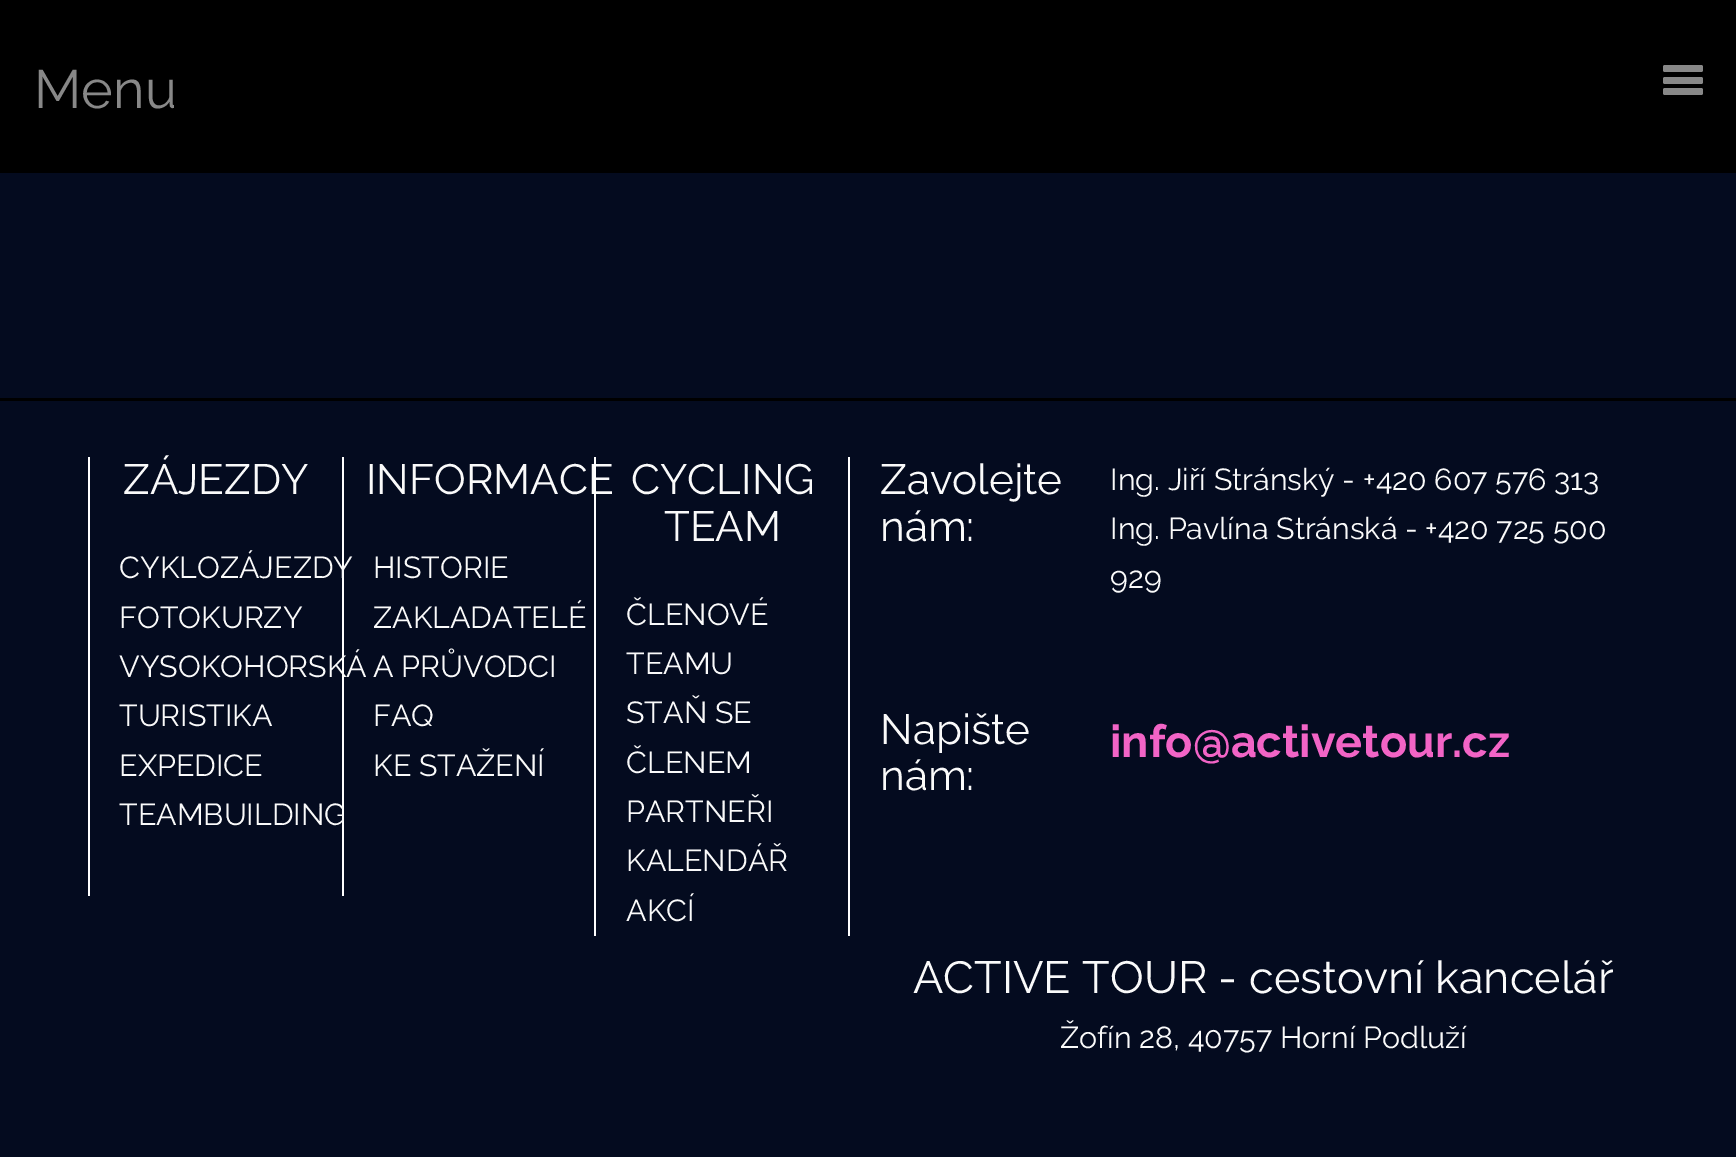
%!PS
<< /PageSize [1736 1157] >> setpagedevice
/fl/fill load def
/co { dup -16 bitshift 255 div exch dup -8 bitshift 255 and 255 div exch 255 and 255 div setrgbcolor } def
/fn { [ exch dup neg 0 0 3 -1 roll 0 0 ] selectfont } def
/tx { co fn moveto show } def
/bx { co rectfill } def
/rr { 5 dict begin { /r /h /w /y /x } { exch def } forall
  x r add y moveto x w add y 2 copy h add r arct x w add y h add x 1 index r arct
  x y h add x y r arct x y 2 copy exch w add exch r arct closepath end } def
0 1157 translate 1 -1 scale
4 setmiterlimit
0 0 1736 1157 16#000000 bx
16#888888 co
1663 65 40 7 2 rr fl
1663 77 40 7 2 rr fl
1663 88 40 7 2 rr fl
0 173 1736 225 16#040B1F bx
0 401 1736 756 16#040B1F bx
342 457 2 439 16#FFFFFF bx
88 457 2 439 16#FFFFFF bx
848 457 2 479 16#FFFFFF bx
(Menu) 34 108 /Raleway-Regular 54 16#888888 tx
(ZÁJEZDY) 123 494 /Raleway-Regular 42.25 16#FAFAFA tx
(CYKLOZÁJEZDY) 119 578 /Raleway-Regular 30.4 16#FAFAFA tx
(FOTOKURZY) 119 628 /Raleway-Regular 30.4 16#FAFAFA tx
(VYSOKOHORSKÁ) 119 677 /Raleway-Regular 30.4 16#FAFAFA tx
(TURISTIKA) 119 726 /Raleway-Regular 30.4 16#FAFAFA tx
(EXPEDICE) 119 776 /Raleway-Regular 30.4 16#FAFAFA tx
(TEAMBUILDING) 119 825 /Raleway-Regular 30.4 16#FAFAFA tx
(INFORMACE) 366 494 /Raleway-Regular 42.25 16#FAFAFA tx
(HISTORIE) 373 578 /Raleway-Regular 30.4 16#FAFAFA tx
(ZAKLADATELÉ) 373 628 /Raleway-Regular 30.4 16#FAFAFA tx
(A PRŮVODCI) 373 677 /Raleway-Regular 30.4 16#FAFAFA tx
(FAQ) 373 726 /Raleway-Regular 30.4 16#FAFAFA tx
(KE STAŽENÍ) 373 776 /Raleway-Regular 30.4 16#FAFAFA tx
594 457 2 479 16#FFFFFF bx
(CYCLING) 631 494 /Raleway-Regular 42.25 16#FAFAFA tx
(TEAM) 664 541 /Raleway-Regular 42.25 16#FAFAFA tx
(ČLENOVÉ) 626 625 /Raleway-Regular 30.4 16#FAFAFA tx
(TEAMU) 626 674 /Raleway-Regular 30.4 16#FAFAFA tx
(STAŇ SE) 626 723 /Raleway-Regular 30.4 16#FAFAFA tx
(ČLENEM) 626 773 /Raleway-Regular 30.4 16#FAFAFA tx
(PARTNEŘI) 626 822 /Raleway-Regular 30.4 16#FAFAFA tx
(KALENDÁŘ) 626 871 /Raleway-Regular 30.4 16#FAFAFA tx
(AKCÍ) 626 921 /Raleway-Regular 30.4 16#FAFAFA tx
(Zavolejte) 880 494 /Raleway-Regular 42.25 16#FAFAFA tx
(nám:) 880 541 /Raleway-Regular 42.25 16#FAFAFA tx
(Ing. Jiří Stránský -) 1110 490 /Raleway-Regular 30.4 16#FAFAFA tx
(+420 607 576 313) 1363 490 /Raleway-Regular 30.4 16#FAFAFA tx
(Ing. Pavlína Stránská -) 1110 539 /Raleway-Regular 30.4 16#FAFAFA tx
(+420 725 500) 1425 539 /Raleway-Regular 30.4 16#FAFAFA tx
(929) 1110 588 /Raleway-Regular 30.4 16#FAFAFA tx
(Napište) 880 744 /Raleway-Regular 42.25 16#FAFAFA tx
(nám:) 880 790 /Raleway-Regular 42.25 16#FAFAFA tx
(info@activetour.cz) 1110 757 /Raleway-Bold 45 16#F264C6 tx
(ACTIVE TOUR - cestovní kancelář) 913 993 /Raleway-Regular 45 16#FAFAFA tx
(Žofín 28, 40757 Horní Podluží) 1060 1048 /Raleway-Regular 30.4 16#FAFAFA tx
showpage
